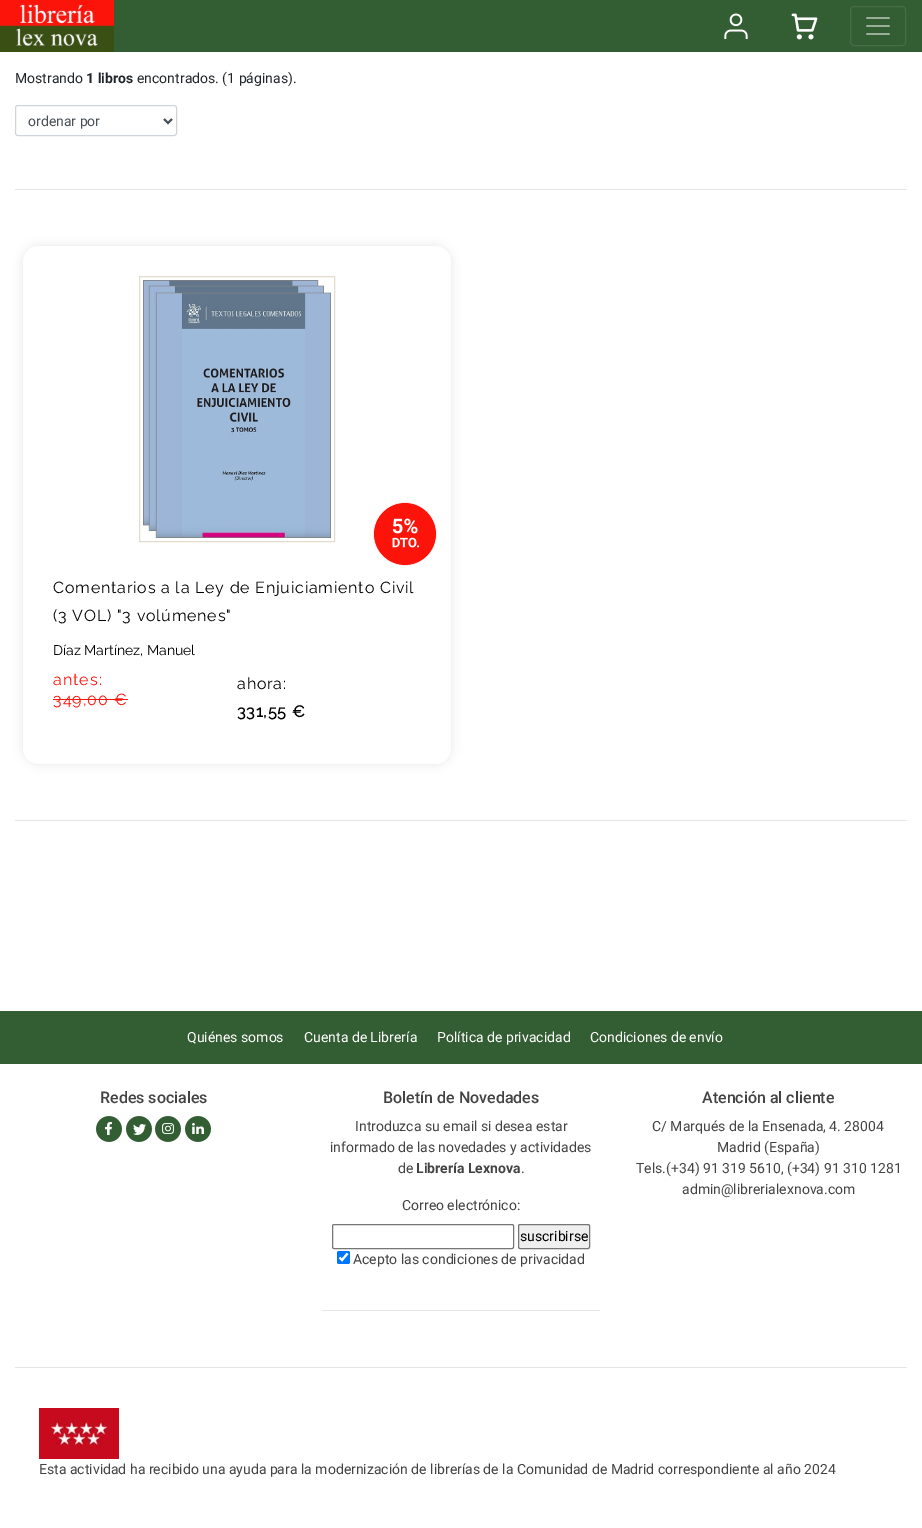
%!PS
<< /PageSize [922 1528] /PageUsesTransparency true >> setpagedevice
/mt/moveto load def
/li/lineto load def
/fl/fill load def
/st/stroke load def
/gs/gsave load def
/gr/grestore load def
/lw/setlinewidth load def
/co { dup -16 bitshift 255 div exch dup -8 bitshift 255 and 255 div exch 255 and 255 div setrgbcolor } def
/fn { [ exch dup neg 0 0 3 -1 roll 0 0 ] selectfont } def
/tx { co fn moveto show } def
/bx { co rectfill } def
/al { dup .setfillconstantalpha .setstrokeconstantalpha } def
/rr { 5 dict begin { /r /h /w /y /x } { exch def } forall
  x r add y moveto x w add y 2 copy h add r arct x w add y h add x 1 index r arct
  x y h add x y r arct x y 2 copy exch w add exch r arct closepath end } def
/sh { 12 dict begin { /a /b /q /h /w /y /x } { exch def } forall gsave /was 0 def
  9 -2 -9 { dup b mul 4 div /e exch def 1 sub .425 mul 2.718 exch exp 1 add a .99 .min exch div /now exch def
    1 1 now sub 1 was sub div sub al /was now def
    w h .min e 2 mul add 0 gt { x e sub y e sub w e 2 mul add h e 2 mul add
      q e add b .6 mul add w h .min 2 div e add .min 0 .max rr fill } if } for grestore end } def
/im { 5 dict begin { /h /w /y /x /name } { exch def } forall
  gsave x y translate w h scale
  w h 8 [w 0 0 h 0 0] name (r) file false 3 colorimage grestore end } def
0 .pushpdf14devicefilter
0 1528 translate 1 -1 scale
4 setmiterlimit
0 0 922 1528 16#FFFFFF bx
114 0 808 52 16#335D33 bx
(media/1.raw) 0 0 114 52 im
(media/2.raw) 724 13 24 26 im
(media/3.raw) 791 13 27 27 im
16#476D47 co
850.5 6.5 55 39 3.5 rr st
(media/4.raw) 866 17 24 18 im
16#CED4DA co
15.5 105.5 161 30 2.5 rr st
16#495057 co
2 lw
164 119 mt 168 123 li 172 119 li st
15 189 892 1 16#E6E6E6 bx
16#000000 co
23 246 428 518 16 5 .1 sh
16#FFFFFF co
23 246 428 518 16 rr fl
16#E2DCCF co
1 lw
139.5 276.5 195 265 rectstroke
(media/5.raw) 143 280 188 258 im
(media/6.raw) 373 502 64 64 im
53 699 75 1 16#FC140A bx
15 820 892 1 16#E6E6E6 bx
0 1011 922 53 16#335D33 bx
(media/7.raw) 96 1116 26 26 im
(media/8.raw) 126 1116 26 26 im
(media/9.raw) 155 1116 26 26 im
(media/10.raw) 185 1116 26 26 im
16#767676 co
332.5 1224.5 181 24 1.5 rr st
16#EFEFEF co
518.5 1224.5 71 24 1.5 rr gs fl gr
16#767676 co
st
16#0075FF co
337 1251 13 13 2 rr fl
16#FFFFFF co
2.1 lw
339.5 1257.5 mt 342 1260 li 347.5 1253.5 li st
322 1310 278 1 16#E6E6E6 bx
15 1367 892 1 16#E6E6E6 bx
(media/11.raw) 39 1408 80 51 im
(Mostrando) 15 83 /Roboto-Regular 14 16#212529 tx
(1 libros) 86 83 /Roboto-Bold 14 16#212529 tx
(encontrados. \(1 páginas\).) 137 83 /Roboto-Regular 14 16#212529 tx
(ordenar por) 28 126 /Roboto-Regular 14 16#495057 tx
/Raleway-Regular 16 fn
16#000000 co
53 593 mt .8 0 (Comentarios a la Ley de Enjuiciamiento Civil) ashow
53 621 mt .8 0 (\(3 VOL\) "3 volúmenes") ashow
(Díaz Martínez, Manuel) 53 655 /Raleway-Regular 14 16#000000 tx
/Raleway-Regular 16 fn
16#FC140A co
53 685 mt 1 0 (antes:) ashow
53 705 mt 1 0 (349,00 €) ashow
16#000000 co
237 689 mt .8 0 (ahora:) ashow
/Raleway-Bold 16 fn
237 717 mt .8 0 (331,55 €) ashow
(Quiénes somos) 187 1042 /Roboto-Regular 14 16#FFFFFF tx
(Cuenta de Librería) 304 1042 /Roboto-Regular 14 16#FFFFFF tx
(Política de privacidad) 437 1042 /Roboto-Regular 14 16#FFFFFF tx
(Condiciones de envío) 590 1042 /Roboto-Regular 14 16#FFFFFF tx
(Redes sociales) 100 1103 /Roboto-Medium 16 16#434343 tx
(Boletín de Novedades) 383 1103 /Roboto-Medium 16 16#434343 tx
(Introduzca su email si desea estar) 355 1131 /Roboto-Regular 14 16#434343 tx
(informado de las novedades y actividades) 330 1152 /Roboto-Regular 14 16#434343 tx
(de) 398 1173 /Roboto-Regular 14 16#434343 tx
(Librería Lexnova) 416 1173 /Roboto-Bold 14 16#434343 tx
(.) 521 1173 /Roboto-Regular 14 16#434343 tx
(Correo electrónico:) 402 1210 /Roboto-Regular 14 16#434343 tx
(suscribirse) 520 1241 /Roboto-Regular 14 16#000000 tx
(Acepto las condiciones de privacidad) 353 1264 /Roboto-Regular 14 16#434343 tx
(Atención al cliente) 702 1103 /Roboto-Medium 16 16#434343 tx
(C/ Marqués de la Ensenada, 4. 28004) 652 1131 /Roboto-Regular 14 16#434343 tx
(Madrid \(España\)) 717 1152 /Roboto-Regular 14 16#434343 tx
(Tels.\(+34\) 91 319 5610, \(+34\) 91 310 1281) 636 1173 /Roboto-Regular 14 16#434343 tx
(admin@librerialexnova.com) 682 1194 /Roboto-Regular 14 16#434343 tx
(Esta actividad ha recibido una ayuda para la modernización de librerías de la Comunidad de Madrid correspondiente al año 2024) 39 1474 /Roboto-Regular 14 16#434343 tx
.poppdf14devicefilter showpage
